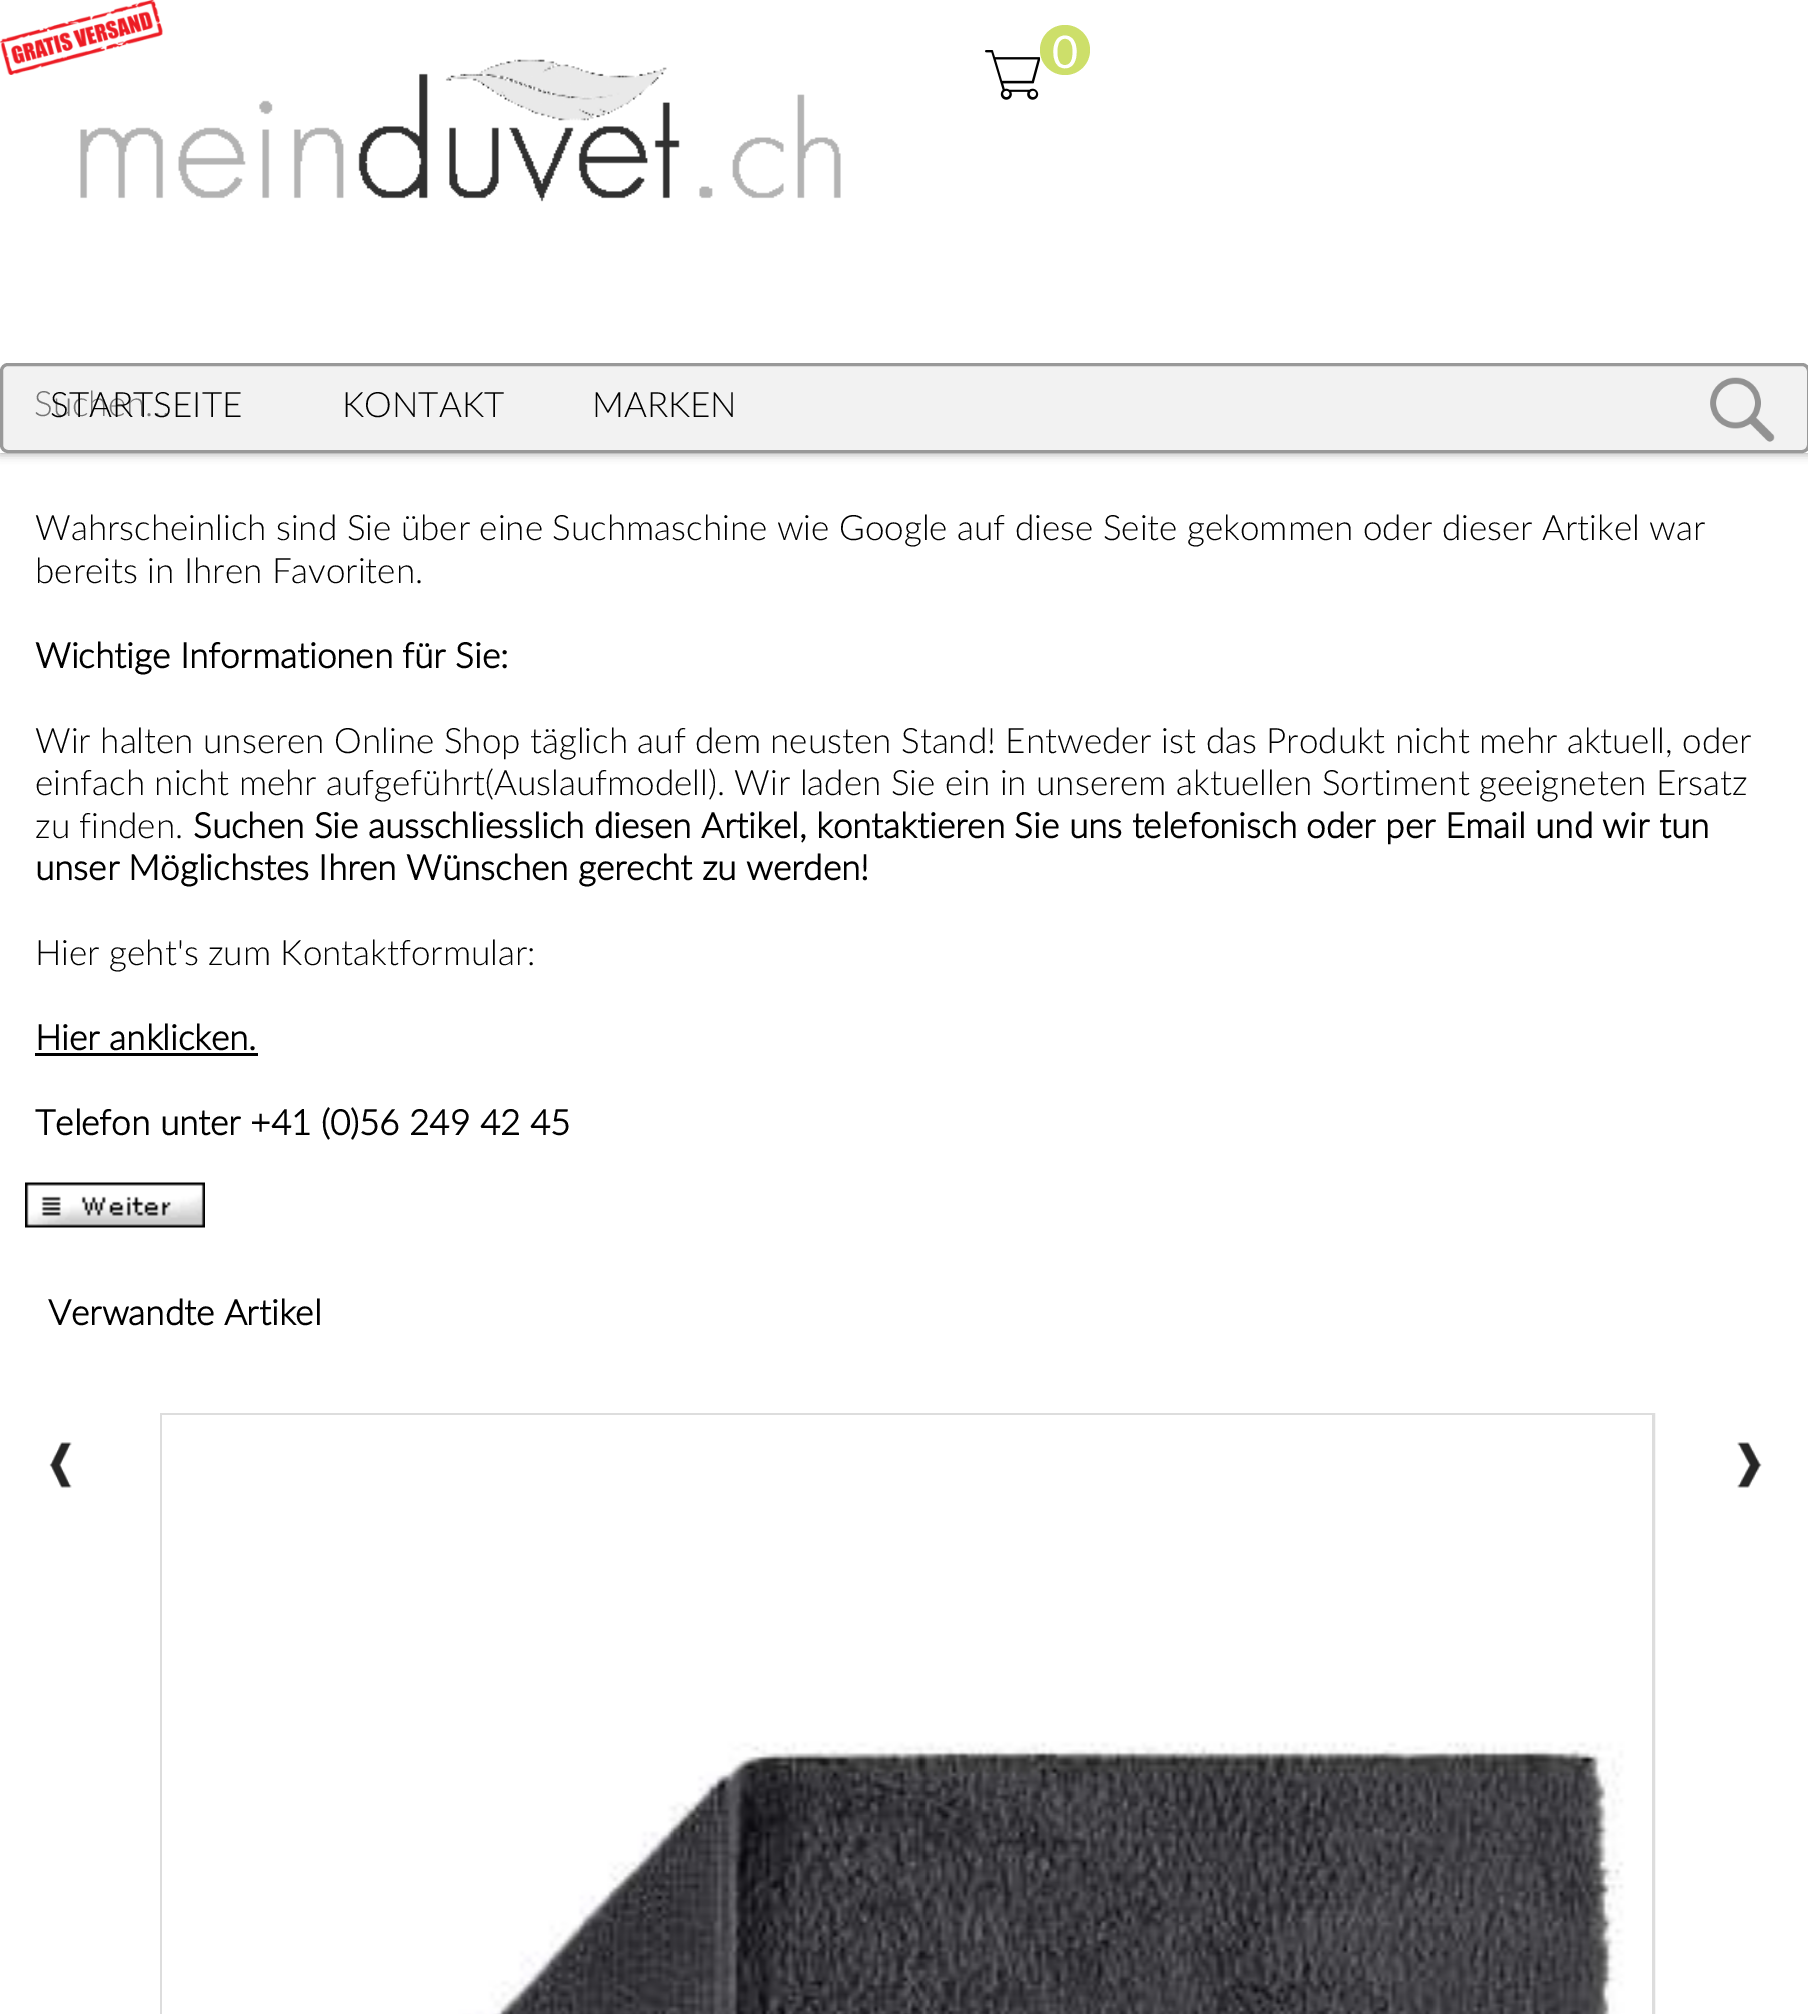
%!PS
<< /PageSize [1808 2014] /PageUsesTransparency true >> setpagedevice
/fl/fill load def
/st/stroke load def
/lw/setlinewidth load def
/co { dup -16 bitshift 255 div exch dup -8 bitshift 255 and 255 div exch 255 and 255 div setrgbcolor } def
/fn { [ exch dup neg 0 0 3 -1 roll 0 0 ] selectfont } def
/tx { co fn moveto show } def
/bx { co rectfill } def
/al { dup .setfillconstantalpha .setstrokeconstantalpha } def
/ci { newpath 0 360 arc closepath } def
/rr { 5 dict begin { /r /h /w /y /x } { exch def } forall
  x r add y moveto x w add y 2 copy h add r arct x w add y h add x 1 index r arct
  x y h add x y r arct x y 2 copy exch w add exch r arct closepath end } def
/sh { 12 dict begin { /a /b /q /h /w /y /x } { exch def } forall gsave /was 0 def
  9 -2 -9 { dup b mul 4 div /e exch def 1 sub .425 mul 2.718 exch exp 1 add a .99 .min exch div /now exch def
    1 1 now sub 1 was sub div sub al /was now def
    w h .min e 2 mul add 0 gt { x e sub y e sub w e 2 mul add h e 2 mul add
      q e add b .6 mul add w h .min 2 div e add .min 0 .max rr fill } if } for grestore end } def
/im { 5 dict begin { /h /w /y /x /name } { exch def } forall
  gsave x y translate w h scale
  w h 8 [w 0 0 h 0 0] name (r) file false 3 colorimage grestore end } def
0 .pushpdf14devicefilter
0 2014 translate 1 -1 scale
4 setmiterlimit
0 0 1808 2014 16#FFFFFF bx
16#999999 co
0 0 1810 453 0 5 1 sh
0 0 1808 453 16#FFFFFF bx
(media/1.raw) 0 0 163 75 im
(media/2.raw) 985 50 55 50 im
16#CDDF6A co
1065 50 25 ci fl
(media/3.raw) 80 59 761 143 im
16#F2F2F2 co
0 363 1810 90 8 rr fl
(media/4.raw) 1710 377 65 65 im
16#999999 co
3 lw
1.5 364.5 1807 87 6.5 rr st
35 1053 223 3 16#000000 bx
(media/5.raw) 25 1182 180 46 im
(media/6.raw) 49 1442 23 46 im
(media/7.raw) 49 1442 23 46 im
16#DDDDDD co
161.5 1414.5 1492 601 rectstroke
(media/8.raw) 162 1415 1490 599 im
(media/9.raw) 1737 1442 25 46 im
(media/10.raw) 1737 1442 25 46 im
(0) 1052 68 /Lato-Regular 45 16#FFFFFF tx
(Suchen...) 34 416 /Lato-Light 35 16#757575 tx
(STARTSEITE) 50 417 /Lato-Light 35 16#000000 tx
(KONTAKT) 342 417 /Lato-Light 35 16#000000 tx
(MARKEN) 592 417 /Lato-Light 35 16#000000 tx
(Wahrscheinlich sind Sie über eine Suchmaschine wie Google auf diese Seite gekommen oder dieser Artikel war) 35 540 /Lato-Light 35 16#000000 tx
(bereits in Ihren Favoriten.) 35 583 /Lato-Light 35 16#000000 tx
(Wichtige Informationen für Sie:) 35 668 /Lato-Bold 35 16#000000 tx
(Wir halten unseren Online Shop täglich auf dem neusten Stand! Entweder ist das Produkt nicht mehr aktuell, oder) 35 753 /Lato-Light 35 16#000000 tx
(einfach nicht mehr aufgeführt\(Auslaufmodell\). Wir laden Sie ein in unserem aktuellen Sortiment geeigneten Ersatz) 35 795 /Lato-Light 35 16#000000 tx
(zu finden.) 35 838 /Lato-Light 35 16#000000 tx
(Suchen Sie ausschliesslich diesen Artikel, kontaktieren Sie uns telefonisch oder per Email und wir tun) 193 838 /Lato-Bold 35 16#000000 tx
(unser Möglichstes Ihren Wünschen gerecht zu werden!) 35 880 /Lato-Bold 35 16#000000 tx
(Hier geht's zum Kontaktformular:) 35 965 /Lato-Light 35 16#000000 tx
(Hier anklicken.) 35 1050 /Lato-Bold 35 16#000000 tx
(Telefon unter +41 \(0\)56 249 42 45) 35 1135 /Lato-Bold 35 16#000000 tx
(Verwandte Artikel) 48 1325 /Lato-Bold 35 16#000000 tx
.poppdf14devicefilter showpage
